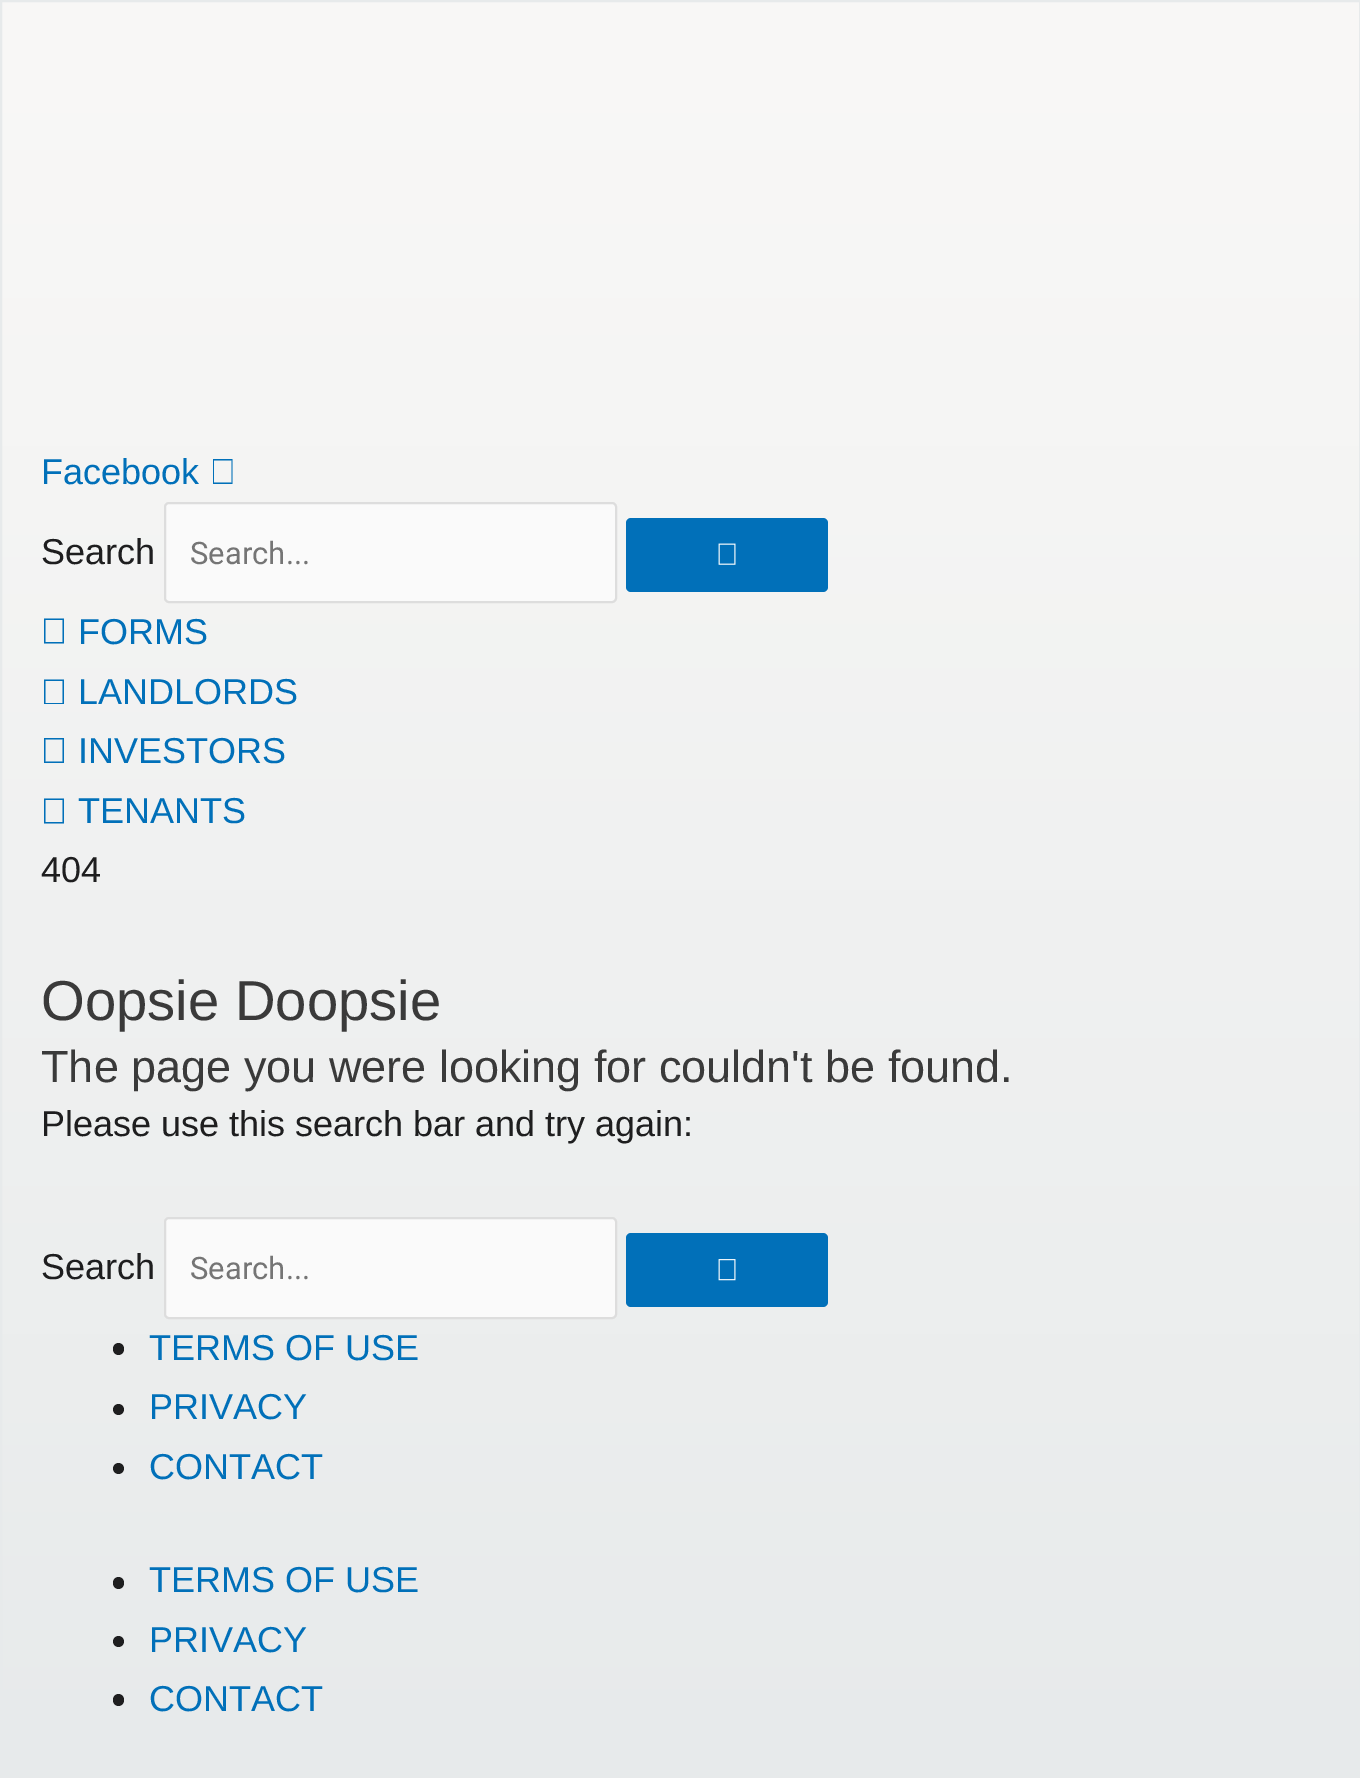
%!PS
<< /PageSize [1360 1778] >> setpagedevice
/mt/moveto load def
/li/lineto load def
/cp/closepath load def
/fl/fill load def
/st/stroke load def
/gs/gsave load def
/gr/grestore load def
/lw/setlinewidth load def
/co { dup -16 bitshift 255 div exch dup -8 bitshift 255 and 255 div exch 255 and 255 div setrgbcolor } def
/fn { [ exch dup neg 0 0 3 -1 roll 0 0 ] selectfont } def
/tx { co fn moveto show } def
/bx { co rectfill } def
/ci { newpath 0 360 arc closepath } def
/rr { 5 dict begin { /r /h /w /y /x } { exch def } forall
  x r add y moveto x w add y 2 copy h add r arct x w add y h add x 1 index r arct
  x y h add x y r arct x y 2 copy exch w add exch r arct closepath end } def
/im { 5 dict begin { /h /w /y /x /name } { exch def } forall
  gsave x y translate w h scale
  w h 8 [w 0 0 h 0 0] name (r) file false 3 colorimage grestore end } def
0 1778 translate 1 -1 scale
4 setmiterlimit
0 0 1360 1778 16#FFFFFF bx
gs 2 2 mt 1359 2 li 1359 1778 li 2 1778 li cp clip newpath
<< /ShadingType 2 /ColorSpace /DeviceRGB /Coords [681 0 681 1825] /Extend [true true] /Function << /FunctionType 2 /Domain [0 1] /C0 [.976 .973 .969] /C1 [.906 .918 .922] /N 1 >> >> shfill gr
16#E7EAEB co
2 lw
1 1 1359 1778 rectstroke
16#0170B9 co
213 459 mt 232.5 459 li 232.5 484 li 213 484 li cp 214 460.5 mt 214 482.5 li 231.5 482.5 li 231.5 460.5 li cp fl
16#FAFAFA co
165 503 451 99 4 rr gs fl gr
16#DDDDDD co
st
16#0170B9 co
626 518 202 74 5 rr fl
(media/1.raw) 718 543 18 22 im
44 618.5 mt 64 618.5 li 64 643.5 li 44 643.5 li cp 45.5 620 mt 45.5 642 li 62.5 642 li 62.5 620 li cp fl
44 679.5 mt 64 679.5 li 64 704 li 44 704 li cp 45.5 681 mt 45.5 703 li 62.5 703 li 62.5 681 li cp fl
44 738 mt 64 738 li 64 763 li 44 763 li cp 45.5 739.5 mt 45.5 761.5 li 62.5 761.5 li 62.5 739.5 li cp fl
44 798.5 mt 64 798.5 li 64 823.5 li 44 823.5 li cp 45.5 800 mt 45.5 822 li 62.5 822 li 62.5 800 li cp fl
16#FAFAFA co
165 1218 451 100 4 rr gs fl gr
16#DDDDDD co
st
16#0170B9 co
626 1233 202 74 5 rr fl
(media/2.raw) 718 1259 18 22 im
16#1E1E1F co
113 1343 11 12 5.5 rr fl
118.5 1409.5 5.5 ci fl
118.5 1468.5 5.5 ci fl
113 1577 11 12 5.5 rr fl
118.5 1641.5 5.5 ci fl
113 1694 11 12 5.5 rr fl
(Facebook) 41 484 /LiberationSans-Regular 36 16#0170B9 tx
(Search) 41 564 /LiberationSans-Regular 36 16#1E1E1F tx
(Search...) 190 564 /Roboto-Regular 31 16#757575 tx
(FORMS) 78 644 /LiberationSans-Regular 36 16#0170B9 tx
(LANDLORDS) 78 704 /LiberationSans-Regular 36 16#0170B9 tx
(INVESTORS) 78 763 /LiberationSans-Regular 36 16#0170B9 tx
(TENANTS) 78 823 /LiberationSans-Regular 36 16#0170B9 tx
(404) 41 882 /LiberationSans-Regular 36 16#1E1E1F tx
(Oopsie Doopsie) 41 1020 /LiberationSans-Regular 56.25 16#3A3A3A tx
(The page you were looking for couldn't be found.) 41 1082 /LiberationSans-Regular 45 16#3A3A3A tx
(Please use this search bar and try again:) 41 1136 /LiberationSans-Regular 36 16#1E1E1F tx
(Search) 41 1279 /LiberationSans-Regular 36 16#1E1E1F tx
(Search...) 190 1279 /Roboto-Regular 31 16#757575 tx
(TERMS OF USE) 149 1360 /LiberationSans-Regular 36 16#0170B9 tx
(PRIVACY) 149 1419 /LiberationSans-Regular 36 16#0170B9 tx
(CONTACT) 149 1479 /LiberationSans-Regular 36 16#0170B9 tx
(TERMS OF USE) 149 1592 /LiberationSans-Regular 36 16#0170B9 tx
(PRIVACY) 149 1652 /LiberationSans-Regular 36 16#0170B9 tx
(CONTACT) 149 1711 /LiberationSans-Regular 36 16#0170B9 tx
showpage
